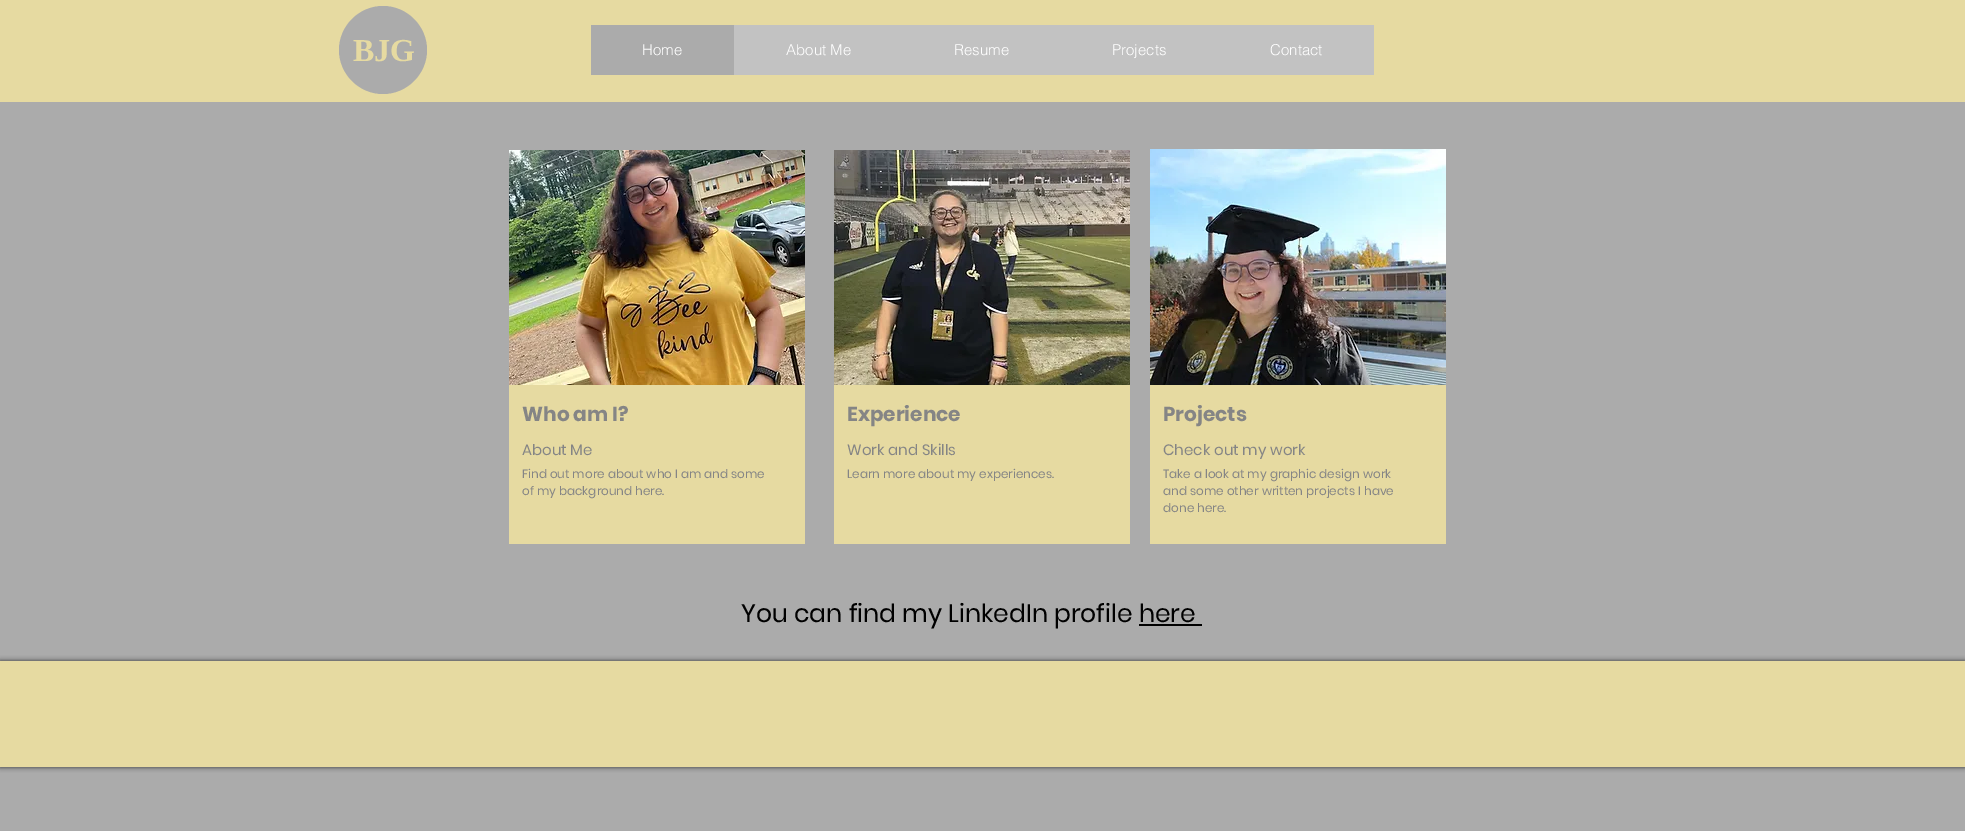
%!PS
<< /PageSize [1965 831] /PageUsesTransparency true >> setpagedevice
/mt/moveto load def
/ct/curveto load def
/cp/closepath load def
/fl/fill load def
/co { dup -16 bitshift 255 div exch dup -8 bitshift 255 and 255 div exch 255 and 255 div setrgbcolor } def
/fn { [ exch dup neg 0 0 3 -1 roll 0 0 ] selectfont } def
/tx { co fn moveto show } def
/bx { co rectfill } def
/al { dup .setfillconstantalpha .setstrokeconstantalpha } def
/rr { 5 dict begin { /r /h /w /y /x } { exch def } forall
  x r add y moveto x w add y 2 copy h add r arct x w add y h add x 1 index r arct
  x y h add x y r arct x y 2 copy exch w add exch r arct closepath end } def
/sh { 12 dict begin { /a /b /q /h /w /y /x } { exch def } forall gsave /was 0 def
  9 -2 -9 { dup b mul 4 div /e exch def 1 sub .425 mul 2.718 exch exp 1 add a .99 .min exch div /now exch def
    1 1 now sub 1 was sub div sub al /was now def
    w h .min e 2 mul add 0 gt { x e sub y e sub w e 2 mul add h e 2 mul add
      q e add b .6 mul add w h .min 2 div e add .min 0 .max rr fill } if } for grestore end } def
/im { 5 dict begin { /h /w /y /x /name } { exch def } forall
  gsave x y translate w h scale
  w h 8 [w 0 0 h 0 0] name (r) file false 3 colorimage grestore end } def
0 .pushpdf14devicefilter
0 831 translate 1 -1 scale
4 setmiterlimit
0 0 1965 831 16#ABABAB bx
0 0 1965 102 16#E6DAA1 bx
16#ABABAB co
427 50 mt 427 74 407 94 383 94 ct 359 94 339 74 339 50 ct 339 26 359 6 383 6 ct 407 6 427 26 427 50 ct cp fl
734 25 640 50 16#C2C2C2 bx
591 25 143 50 16#ABABAB bx
(media/1.raw) 509 150 296 235 im
509 385 296 159 16#E6DAA1 bx
(media/2.raw) 834 150 296 235 im
834 385 296 159 16#E6DAA1 bx
(media/3.raw) 1150 149 296 236 im
1150 385 296 159 16#E6DAA1 bx
1139 624 63 2 16#000000 bx
0 661 1965 106 0 2.5 .7 sh
0 661 1965 106 16#E6DAA1 bx
(BJG) 353 61 /LiberationSerif-Bold 32 16#E6DAA1 tx
(Home) 642 55 /helvetica-Light 15 16#FFFFFF tx
(About Me) 786 55 /helvetica-Light 15 16#FFFFFF tx
(Resume) 954 55 /helvetica-Light 15 16#FFFFFF tx
(Projects) 1112 55 /helvetica-Light 15 16#FFFFFF tx
(Contact) 1270 55 /helvetica-Light 15 16#FFFFFF tx
(Who am I?) 522 421 /Poppins-Bold 20 16#858585 tx
(About Me) 522 455 /Poppins-Regular 15 16#858585 tx
(Find out more about who I am and some) 522 478 /Poppins-Regular 12 16#858585 tx
(of my background here.) 522 495 /Poppins-Regular 12 16#858585 tx
(Experience) 847 421 /Poppins-Bold 20 16#858585 tx
(Work and Skills) 847 455 /Poppins-Regular 15 16#858585 tx
(Learn more about my experiences.) 847 478 /Poppins-Regular 12 16#858585 tx
(Projects) 1163 421 /Poppins-Bold 20 16#858585 tx
(Check out my work) 1163 455 /Poppins-Regular 15 16#858585 tx
(Take a look at my graphic design work) 1163 478 /Poppins-Regular 12 16#858585 tx
(and some other written projects I have) 1163 495 /Poppins-Regular 12 16#858585 tx
(done here.) 1163 512 /Poppins-Regular 12 16#858585 tx
(You can find my LinkedIn profile here) 741 622 /Poppins-Regular 25 16#000000 tx
.poppdf14devicefilter showpage
